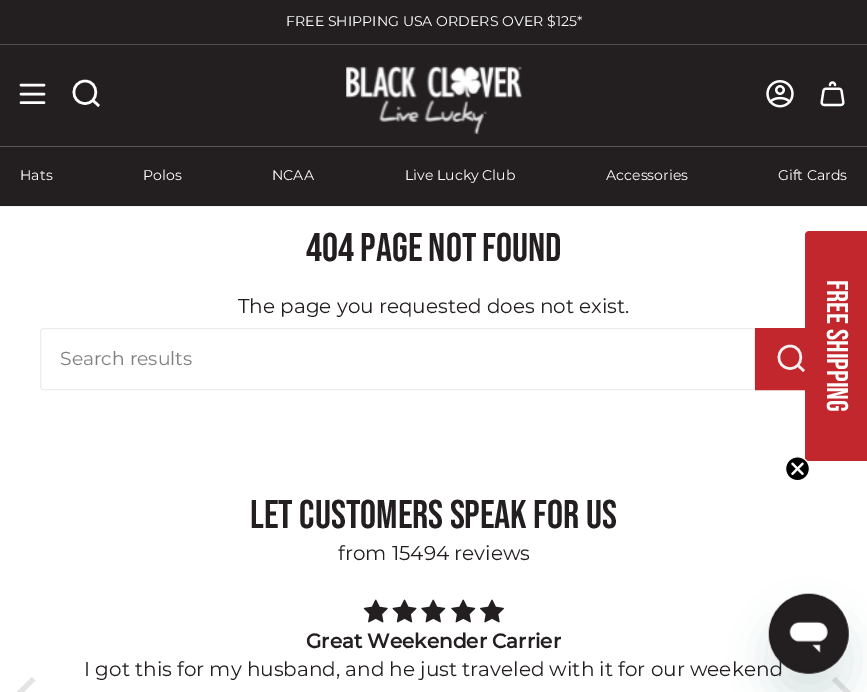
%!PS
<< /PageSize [867 692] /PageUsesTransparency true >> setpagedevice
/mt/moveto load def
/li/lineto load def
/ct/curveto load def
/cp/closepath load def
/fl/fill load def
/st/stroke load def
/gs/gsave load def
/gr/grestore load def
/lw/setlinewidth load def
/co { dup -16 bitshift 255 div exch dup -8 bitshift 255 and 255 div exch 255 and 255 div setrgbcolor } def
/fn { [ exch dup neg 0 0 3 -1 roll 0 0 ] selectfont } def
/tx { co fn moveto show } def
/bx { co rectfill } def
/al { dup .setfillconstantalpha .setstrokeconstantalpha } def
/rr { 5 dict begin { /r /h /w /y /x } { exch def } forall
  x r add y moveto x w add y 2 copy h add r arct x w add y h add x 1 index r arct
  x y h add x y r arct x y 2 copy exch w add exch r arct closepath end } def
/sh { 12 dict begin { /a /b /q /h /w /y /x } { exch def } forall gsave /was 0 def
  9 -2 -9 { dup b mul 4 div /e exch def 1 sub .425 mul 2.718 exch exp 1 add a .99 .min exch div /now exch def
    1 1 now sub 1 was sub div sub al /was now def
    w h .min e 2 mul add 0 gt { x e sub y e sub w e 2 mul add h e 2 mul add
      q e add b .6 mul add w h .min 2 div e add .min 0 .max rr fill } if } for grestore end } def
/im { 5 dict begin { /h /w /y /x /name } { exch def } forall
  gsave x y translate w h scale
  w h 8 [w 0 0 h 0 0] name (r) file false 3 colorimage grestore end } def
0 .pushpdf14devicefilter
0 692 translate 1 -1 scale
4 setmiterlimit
0 0 867 692 16#FFFFFF bx
0 0 867 206 16#231F20 bx
0 44 867 1 16#514E4F bx
16#FFFFFF co
2.5 lw
1 setlinecap
1 setlinejoin
21 85 mt 44 85 li 21 94 mt 44 94 li 21 102.5 mt 44 102.5 li st
0 setlinecap
0 setlinejoin
85 81 mt 99.5 81 99.5 104 84.5 103.5 ct 70 102.5 70.5 81.5 85 81 ct cp 92.5 100 mt 99 106 li st
(media/1.raw) 346 65 176 70 im
(media/2.raw) 766 80 28 28 im
(media/3.raw) 820 81 25 26 im
0 146 867 1 16#5A5758 bx
0 206 867 1 16#F6F6F6 bx
16#EDEDED co
1 lw
44 328.5 mt 754.5 328.5 li 754.5 389.5 li 44 389.5 li 42 389.5 40.5 388 40.5 386 ct 40.5 332 li 40.5 330 42 328.5 44 328.5 ct cp st
756 329 49 60 16#C1272D bx
755.5 328.5 72 61 rectstroke
16#F1F1F1 co
2.5 lw
790 346 mt 804.5 346 804.5 369 789.5 368.5 ct 775 367.5 775.5 346.5 790 346 ct cp 797.5 365 mt 804 371 li st
16#C1272D co
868 231 mt 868 461 li 809 461 li 807 461 805 460 805 458 ct 805 235 li 805 233 807 231 809 231 ct cp fl
(media/4.raw) 785 456 25 25 im
(media/5.raw) 363 599 25 24 im
(media/6.raw) 392 599 25 24 im
(media/7.raw) 421 599 25 24 im
(media/7.raw) 451 599 25 24 im
(media/8.raw) 480 599 24 24 im
16#E4E4E4 co
14 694.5 mt 32 677 li 35.5 680.5 li 17.5 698.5 li cp fl
14 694.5 mt 17.5 691 li 35.5 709 li 32 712.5 li cp fl
832 680.5 mt 835.5 677 li 853.5 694.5 li 850 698.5 li cp fl
832 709 mt 850 691 li 853.5 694.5 li 835.5 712.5 li cp fl
16#17494D co
769 619 80 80 40 19 .15 sh
(FREE SHIPPING USA ORDERS OVER $125*) 286 26 /Montserrat-Thin 14.1 16#FFFFFF tx
(Hats) 20 180 /Montserrat-Thin 14.1 16#FFFFFF tx
(Polos) 143 180 /Montserrat-Thin 14.1 16#FFFFFF tx
(NCAA) 272 180 /Montserrat-Thin 14.1 16#FFFFFF tx
(Live Lucky Club) 405 180 /Montserrat-Thin 14.1 16#FFFFFF tx
(Accessories) 606 180 /Montserrat-Thin 14.1 16#FFFFFF tx
(Gift Cards) 778 180 /Montserrat-Thin 14.1 16#FFFFFF tx
(404 Page Not Found) 306 261 /BebasNeue-Regular 40 16#231F20 tx
(The page you requested does not exist.) 238 313 /Montserrat-Thin 20 16#231F20 tx
(Search results) 60 365 /Montserrat-Thin 18.75 16#808080 tx
/BebasNeue-Regular 30 fn
16#FFFFFF co
gs 827 280 translate 90 rotate 0 0 mt (FREE SHIPPING) show gr
(Let customers speak for us) 250 528 /BebasNeue-Regular 40 16#231F20 tx
(from 15494 reviews) 338 560 /Montserrat-Thin 20 16#231F20 tx
(Great Weekender Carrier) 306 648 /Montserrat-Bold 20 16#231F20 tx
(I got this for my husband, and he just traveled with it for our weekend) 84 676 /Montserrat-Thin 20 16#231F20 tx
(media/9.raw) 768 593 81 81 im
.poppdf14devicefilter showpage
